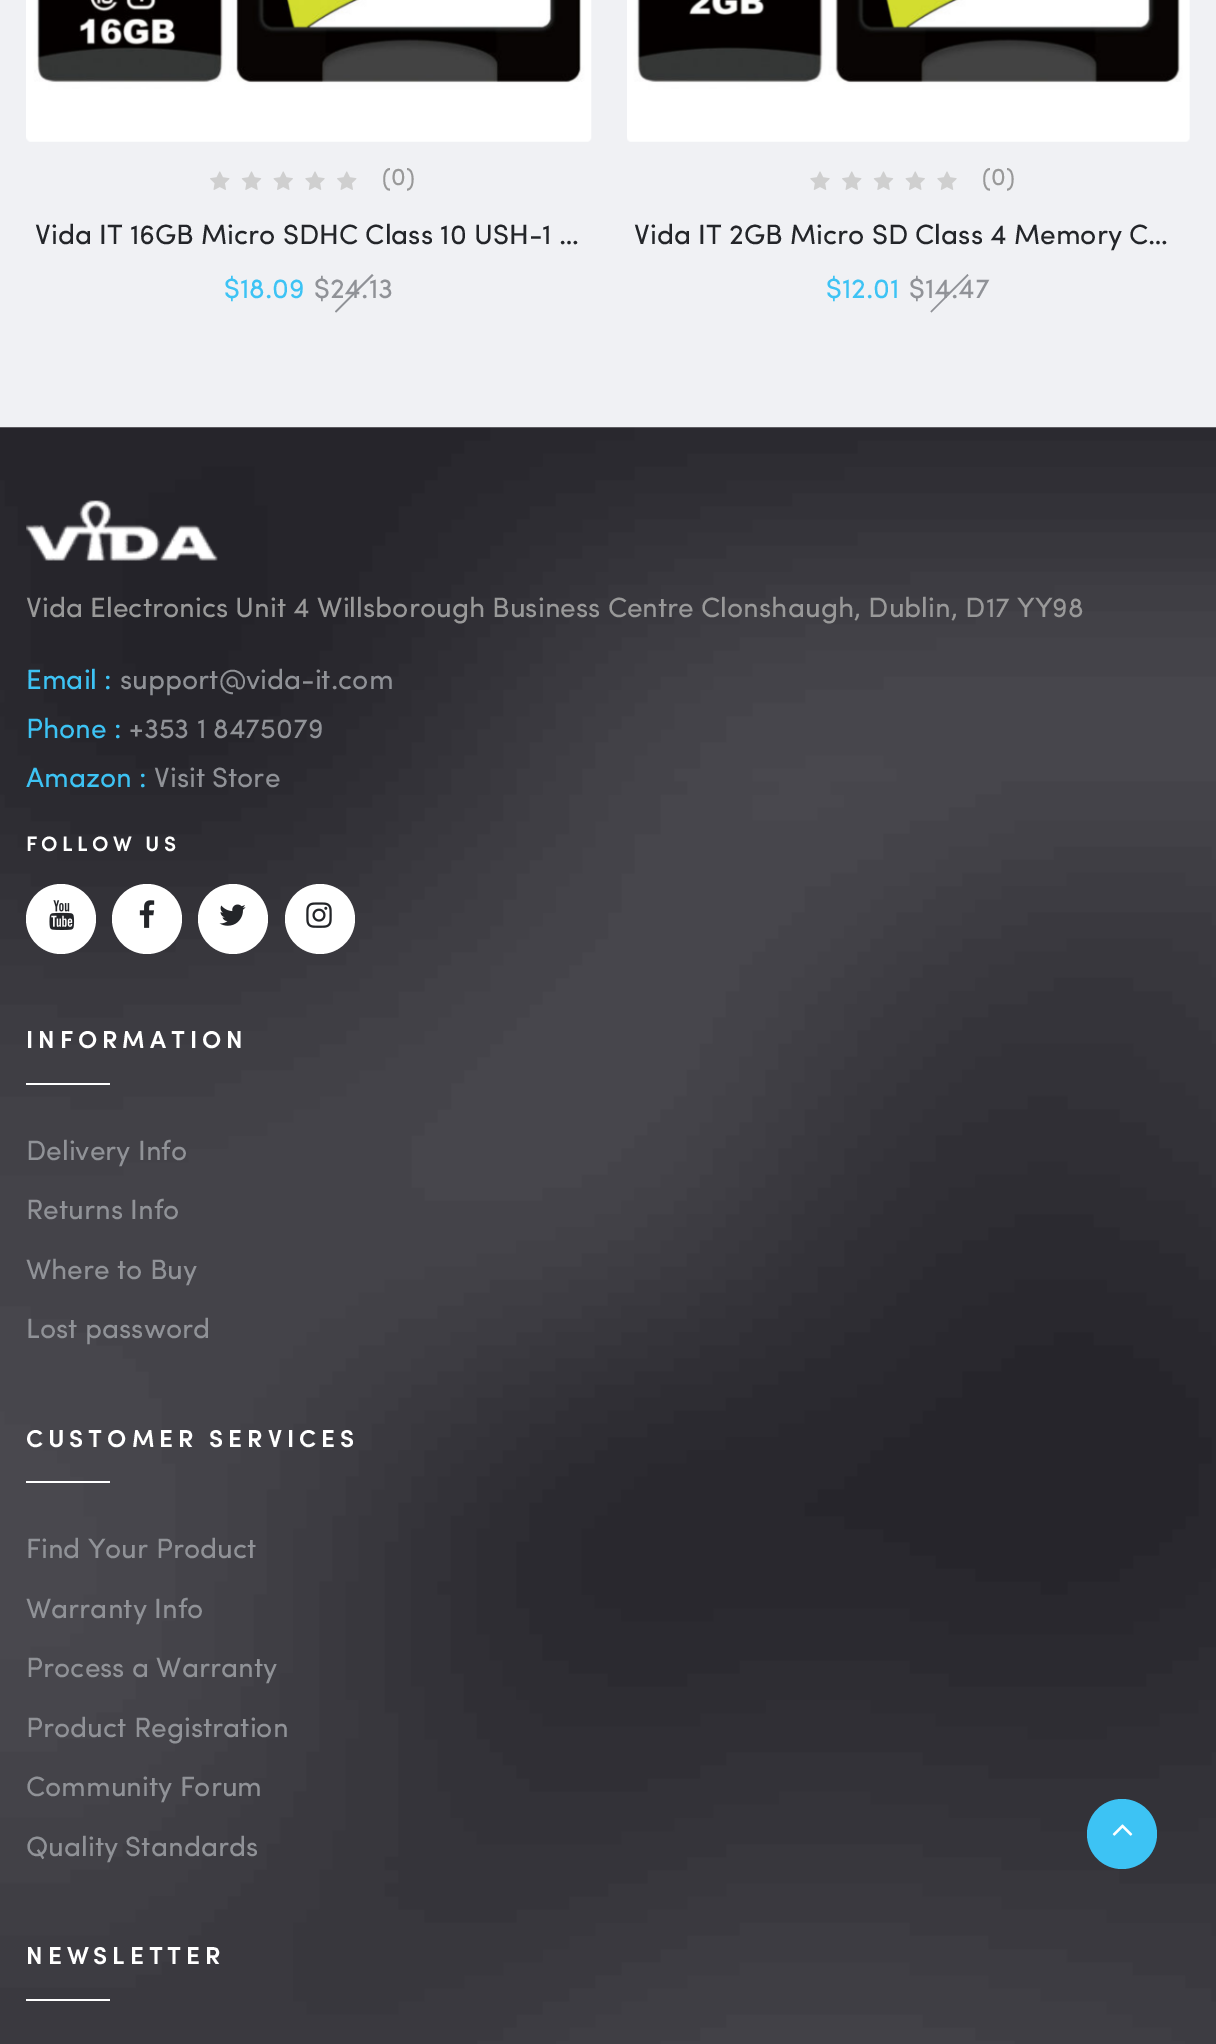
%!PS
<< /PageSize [1216 2044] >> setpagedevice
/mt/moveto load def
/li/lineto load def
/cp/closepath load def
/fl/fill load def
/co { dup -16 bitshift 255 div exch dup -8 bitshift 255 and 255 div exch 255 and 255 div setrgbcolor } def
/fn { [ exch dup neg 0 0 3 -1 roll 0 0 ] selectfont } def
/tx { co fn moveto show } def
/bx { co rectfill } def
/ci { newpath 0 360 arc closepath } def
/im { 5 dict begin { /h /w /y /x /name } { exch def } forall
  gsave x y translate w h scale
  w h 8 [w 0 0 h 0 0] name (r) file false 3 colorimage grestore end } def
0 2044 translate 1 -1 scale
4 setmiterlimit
0 0 1216 2044 16#FFFFFF bx
0 0 1216 427 16#F0F1F4 bx
(media/1.raw) 26 0 566 142 im
(media/2.raw) 210 171 147 19 im
16#909297 co
335 311.5 mt 372 274 li 373.5 275.5 li 336 312.5 li cp fl
(media/3.raw) 627 0 563 142 im
(media/4.raw) 810 171 147 19 im
930.5 311.5 mt 967.5 274 li 968.5 275.5 li 931.5 312.5 li cp fl
(media/5.raw) 0 427 1216 1617 im
(media/6.raw) 26 500 192 61 im
16#FFFFFF co
61 919 35 ci fl
(media/7.raw) 49 900 26 30 im
147 919 35 ci fl
(media/8.raw) 139 900 16 28 im
233 919 35 ci fl
(media/9.raw) 219 904 27 22 im
320 919 35 ci fl
(media/10.raw) 306 902 26 26 im
26 1083 84 2 16#FFFFFF bx
26 1481 84 2 16#FFFFFF bx
26 1999 84 2 16#FFFFFF bx
16#3DC3F4 co
1122 1834 35 ci fl
(media/11.raw) 1112 1824 21 12 im
(\(0\)) 382 185 /Sofia-Regular 24.5 16#999999 tx
(Vida IT 16GB Micro SDHC Class 10 USH-1 …) 35 244 /Sofia-Regular 28 16#232529 tx
($18.09) 224 298 /Sofia-Regular 28 16#3DC3F4 tx
($24.13) 314 298 /Sofia-Regular 28 16#909297 tx
(\(0\)) 982 185 /Sofia-Regular 24.5 16#999999 tx
(Vida IT 2GB Micro SD Class 4 Memory C…) 634 244 /Sofia-Regular 28 16#232529 tx
($12.01) 826 298 /Sofia-Regular 28 16#3DC3F4 tx
($14.47) 909 298 /Sofia-Regular 28 16#909297 tx
(Vida Electronics Unit 4 Willsborough Business Centre Clonshaugh, Dublin, D17 YY98) 26 617 /Sofia-Regular 28 16#999999 tx
(Email :) 26 689 /Sofia-Regular 28 16#3DC3F4 tx
(support@vida-it.com) 120 689 /Sofia-Regular 28 16#909297 tx
(Phone :) 26 738 /Sofia-Regular 28 16#3DC3F4 tx
(+353 1 8475079) 129 738 /Sofia-Regular 28 16#909297 tx
(Amazon :) 26 787 /Sofia-Regular 28 16#3DC3F4 tx
(Visit Store) 154 787 /Sofia-Regular 28 16#909297 tx
/Sofia-SemiBold 21 fn
16#FFFFFF co
26 851 mt 4.25 0 (FOLLOW US) ashow
/Sofia-SemiBold 24.5 fn
26 1048 mt 4.9 0 (INFORMATION) ashow
(Delivery Info) 26 1160 /Sofia-Regular 28 16#909297 tx
(Returns Info) 26 1219 /Sofia-Regular 28 16#909297 tx
(Where to Buy) 26 1279 /Sofia-Regular 28 16#909297 tx
(Lost password) 26 1338 /Sofia-Regular 28 16#909297 tx
/Sofia-SemiBold 24.5 fn
16#FFFFFF co
26 1447 mt 4.9 0 (CUSTOMER SERVICES) ashow
(Find Your Product) 26 1558 /Sofia-Regular 28 16#909297 tx
(Warranty Info) 26 1618 /Sofia-Regular 28 16#909297 tx
(Process a Warranty) 26 1677 /Sofia-Regular 28 16#909297 tx
(Product Registration) 26 1737 /Sofia-Regular 28 16#909297 tx
(Community Forum) 26 1796 /Sofia-Regular 28 16#909297 tx
(Quality Standards) 26 1856 /Sofia-Regular 28 16#909297 tx
/Sofia-SemiBold 24.5 fn
16#FFFFFF co
26 1964 mt 4.9 0 (NEWSLETTER) ashow
showpage
